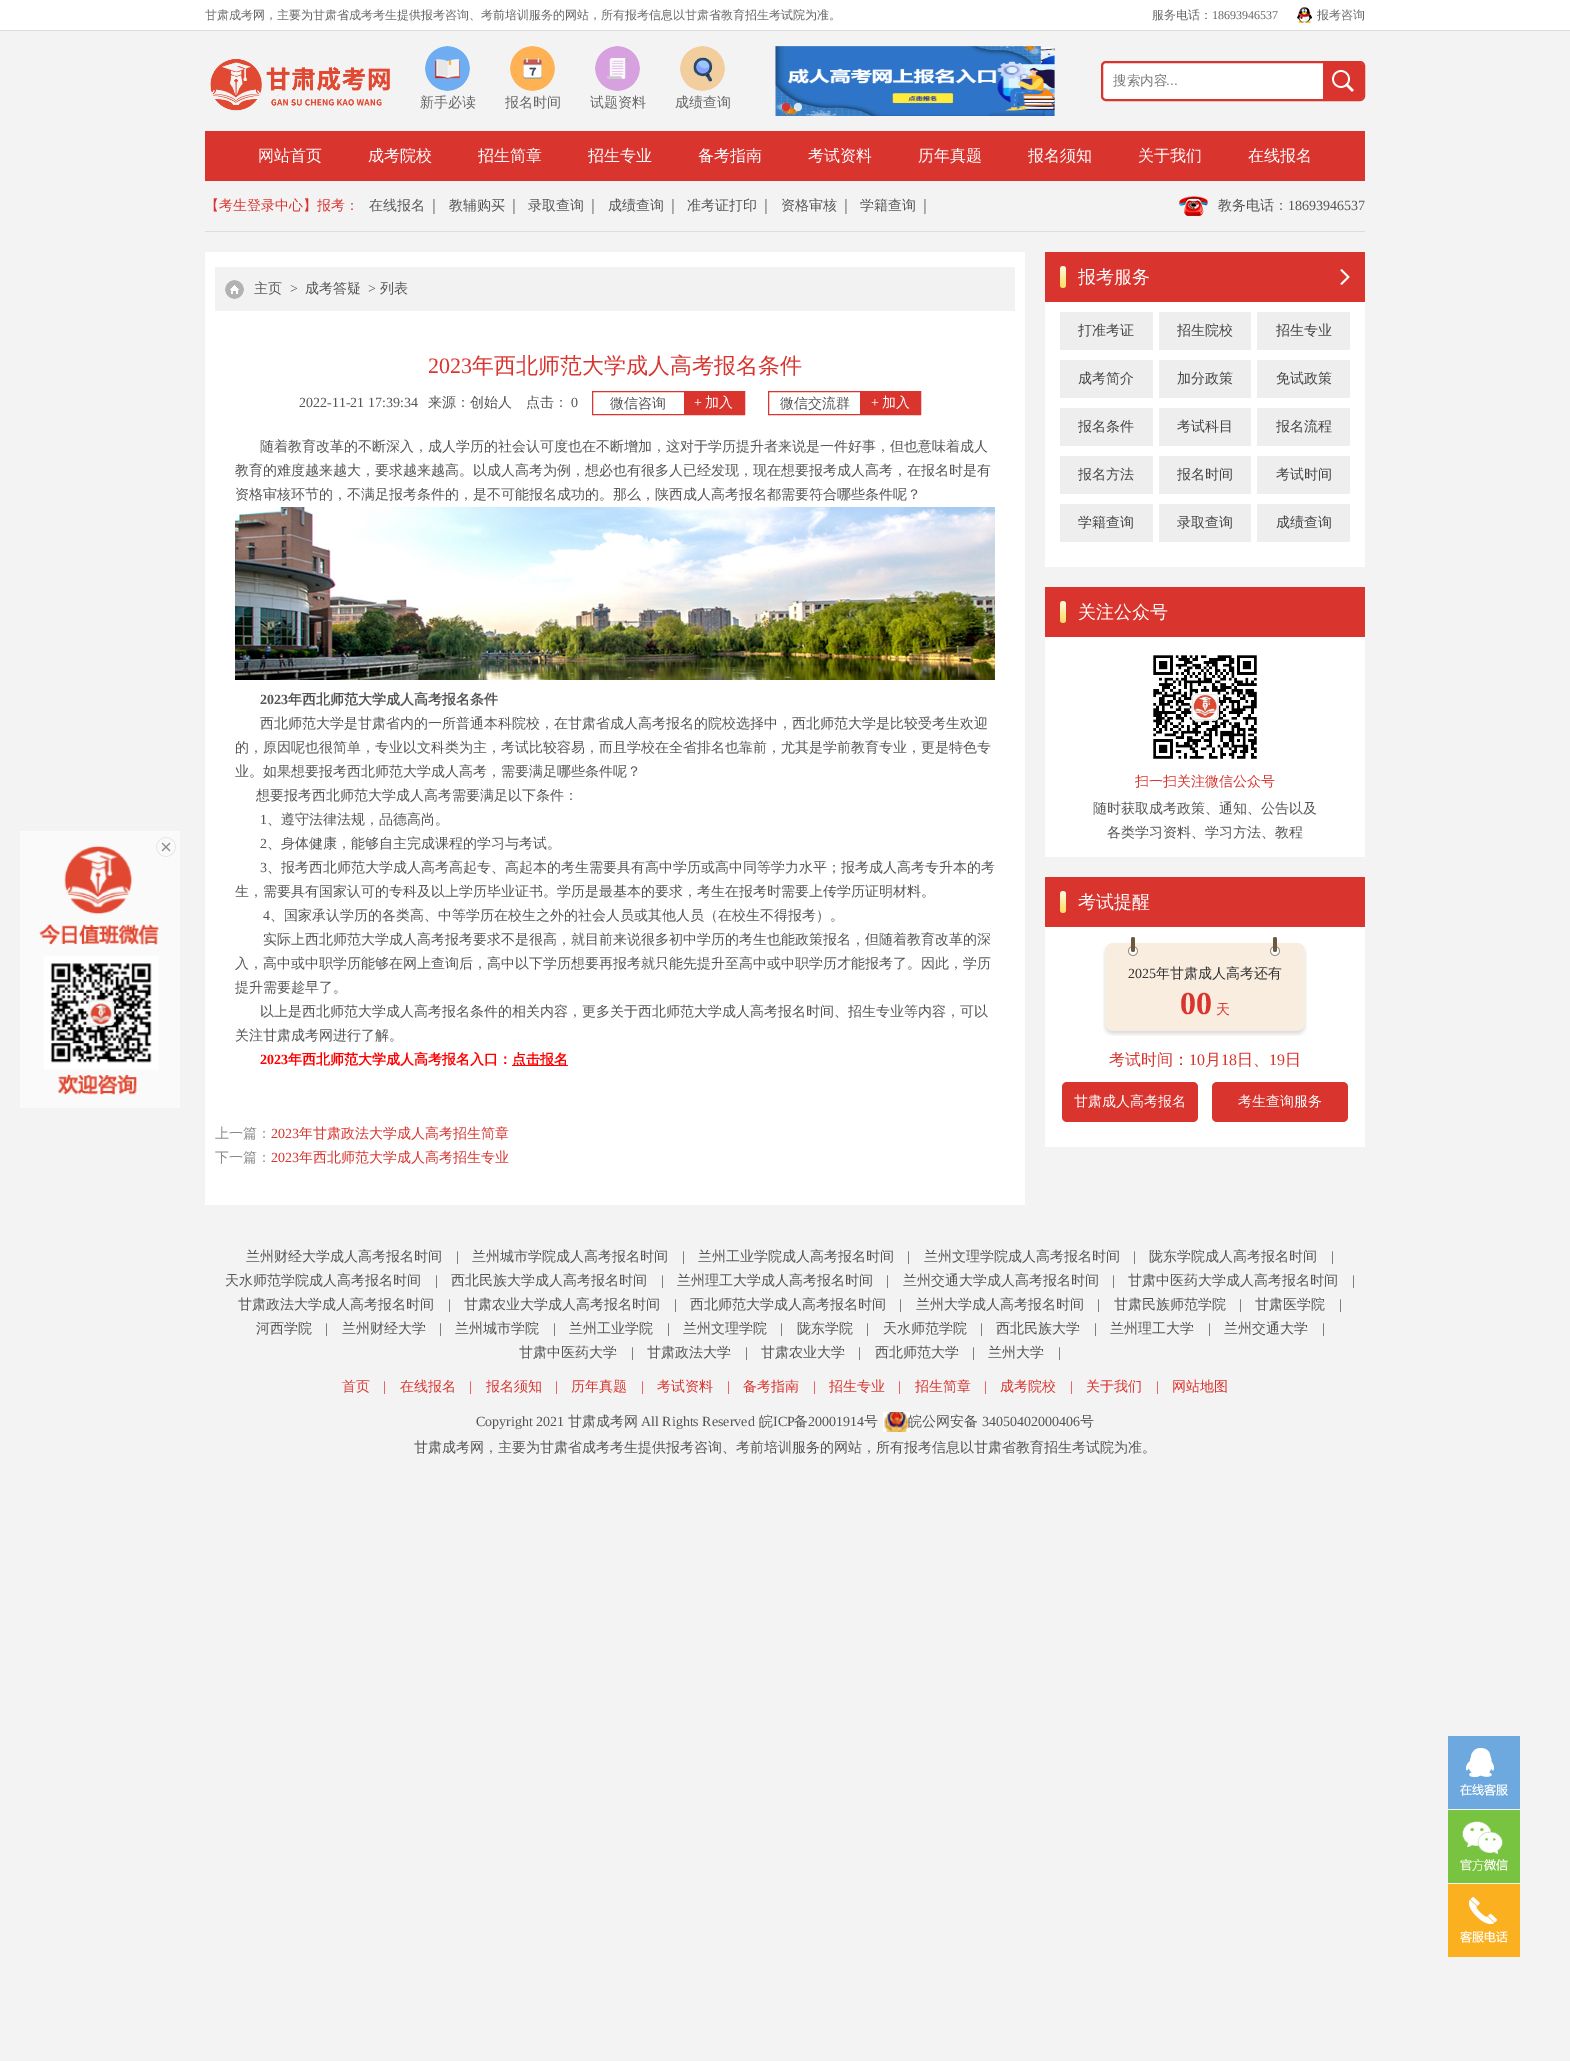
%!PS
<< /PageSize [1570 2061] /PageUsesTransparency true >> setpagedevice
/mt/moveto load def
/li/lineto load def
/ct/curveto load def
/cp/closepath load def
/fl/fill load def
/st/stroke load def
/gs/gsave load def
/gr/grestore load def
/lw/setlinewidth load def
/co { dup -16 bitshift 255 div exch dup -8 bitshift 255 and 255 div exch 255 and 255 div setrgbcolor } def
/fn { [ exch dup neg 0 0 3 -1 roll 0 0 ] selectfont } def
/tx { co fn moveto show } def
/bx { co rectfill } def
/al { dup .setfillconstantalpha .setstrokeconstantalpha } def
/ci { newpath 0 360 arc closepath } def
/rr { 5 dict begin { /r /h /w /y /x } { exch def } forall
  x r add y moveto x w add y 2 copy h add r arct x w add y h add x 1 index r arct
  x y h add x y r arct x y 2 copy exch w add exch r arct closepath end } def
/im { 5 dict begin { /h /w /y /x /name } { exch def } forall
  gsave x y translate w h scale
  w h 8 [w 0 0 h 0 0] name (r) file false 3 colorimage grestore end } def
0 .pushpdf14devicefilter
0 2061 translate 1 -1 scale
4 setmiterlimit
0 0 1570 2061 16#F3F3F3 bx
0 0 1570 30 16#FFFFFF bx
0 30 1570 1 16#DDDDDD bx
(media/1.raw) 1297 7 15 16 im
(media/2.raw) 210 59 180 52 im
775 46 280 70 16#DDDDDD bx
(media/3.raw) 775 46 280 70 im
16#D9342E co
786 107 4 ci fl
0.8 al
16#FFFFFF co
798 107 4 ci fl
1 al
1102 62 262 38 4 rr gs fl gr
16#D9342E co
2 lw
st
1323 63 mt 1360 63 li 1361.5 63 1363 64.5 1363 66 ct 1363 96 li 1363 97.5 1361.5 99 1360 99 ct 1323 99 li cp fl
(media/4.raw) 1332 70 22 22 im
(media/5.raw) 425 46 45 45 im
(media/6.raw) 510 46 45 45 im
(media/7.raw) 595 46 45 45 im
(media/8.raw) 680 46 45 45 im
205 131 1160 50 16#D9342E bx
205 231 1160 1 16#DDDDDD bx
(media/9.raw) 433 199 2 15 im
(media/9.raw) 513 199 2 15 im
(media/9.raw) 592 199 2 15 im
(media/9.raw) 672 199 2 15 im
(media/9.raw) 765 199 2 15 im
(media/9.raw) 845 199 2 15 im
(media/9.raw) 924 199 2 15 im
(media/10.raw) 1179 196 29 20 im
20 831 160 277 16#FAFAFA bx
(media/11.raw) 39 846 120 249 im
(media/12.raw) 156 837 20 20 im
205 252 820 953 16#FFFFFF bx
215 267 800 44 16#F2F2F2 bx
(media/13.raw) 225 280 19 19 im
16#D9342E co
1 lw
592.5 391.5 152 23 rectstroke
684 392 60 22 16#D9342E bx
768.5 391.5 152 23 rectstroke
860 392 60 22 16#D9342E bx
(media/14.raw) 235 507 760 173 im
512 1065 56 1 16#FF0000 bx
1045 302 320 265 16#FFFFFF bx
1045 252 320 50 16#D9342E bx
(media/15.raw) 1060 266 6 22 im
(media/16.raw) 1340 269 10 16 im
1060 312 93 38 16#EEEEEE bx
1159 312 92 38 16#EEEEEE bx
1257 312 93 38 16#EEEEEE bx
1060 360 93 38 16#EEEEEE bx
1159 360 92 38 16#EEEEEE bx
1257 360 93 38 16#EEEEEE bx
1060 408 93 38 16#EEEEEE bx
1159 408 92 38 16#EEEEEE bx
1257 408 93 38 16#EEEEEE bx
1060 456 93 38 16#EEEEEE bx
1159 456 92 38 16#EEEEEE bx
1257 456 93 38 16#EEEEEE bx
1060 504 93 38 16#EEEEEE bx
1159 504 92 38 16#EEEEEE bx
1257 504 93 38 16#EEEEEE bx
1045 637 320 220 16#FFFFFF bx
1045 587 320 50 16#D9342E bx
(media/15.raw) 1060 601 6 22 im
(media/17.raw) 1153 655 104 104 im
1045 927 320 220 16#FFFFFF bx
1045 877 320 50 16#D9342E bx
(media/15.raw) 1060 891 6 22 im
(media/18.raw) 1103 937 204 99 im
1062 1082 136 40 5 rr fl
1212 1082 136 40 5 rr fl
(media/19.raw) 883 1412 27 20 im
1448 1736 72 73 16#6DA9DE bx
(media/20.raw) 1460 1748 48 48 im
1448 1810 72 73 16#78C340 bx
(media/21.raw) 1460 1821 48 50 im
1448 1884 72 73 16#FBB01F bx
(media/22.raw) 1460 1897 48 46 im
(甘肃成考网，主要为甘肃省成考考生提供报考咨询、考前培训服务的网站，所有报考信息以甘肃省教育招生考试院为准。) 205 19 /WenQuanYiZenHei-Medium 12 16#666666 tx
(服务电话：) 1152 19 /WenQuanYiZenHei-Medium 12 16#666666 tx
(18693946537) 1212 19 /LiberationSerif-Regular 12 16#666666 tx
(报考咨询) 1317 19 /WenQuanYiZenHei-Medium 12 16#666666 tx
(搜索内容) 1113 85 /WenQuanYiZenHei-Medium 13.5 16#757575 tx
(...) 1166 85 /LiberationSans-Regular 13.5 16#757575 tx
(新手必读) 420 107 /WenQuanYiZenHei-Medium 14 16#666666 tx
(报名时间) 505 107 /WenQuanYiZenHei-Medium 14 16#666666 tx
(试题资料) 590 107 /WenQuanYiZenHei-Medium 14 16#666666 tx
(成绩查询) 675 107 /WenQuanYiZenHei-Medium 14 16#666666 tx
(网站首页) 258 161 /WenQuanYiZenHei-Medium 16 16#FFFFFF tx
(成考院校) 368 161 /WenQuanYiZenHei-Medium 16 16#FFFFFF tx
(招生简章) 478 161 /WenQuanYiZenHei-Medium 16 16#FFFFFF tx
(招生专业) 588 161 /WenQuanYiZenHei-Medium 16 16#FFFFFF tx
(备考指南) 698 161 /WenQuanYiZenHei-Medium 16 16#FFFFFF tx
(考试资料) 808 161 /WenQuanYiZenHei-Medium 16 16#FFFFFF tx
(历年真题) 918 161 /WenQuanYiZenHei-Medium 16 16#FFFFFF tx
(报名须知) 1028 161 /WenQuanYiZenHei-Medium 16 16#FFFFFF tx
(关于我们) 1138 161 /WenQuanYiZenHei-Medium 16 16#FFFFFF tx
(在线报名) 1248 161 /WenQuanYiZenHei-Medium 16 16#FFFFFF tx
(【考生登录中心】) 205 210 /WenQuanYiZenHei-Medium 14 16#D9342E tx
(报考：) 317 210 /WenQuanYiZenHei-Medium 14 16#D9342E tx
(在线报名) 369 210 /WenQuanYiZenHei-Medium 14 16#555555 tx
(教辅购买) 449 210 /WenQuanYiZenHei-Medium 14 16#555555 tx
(录取查询) 528 210 /WenQuanYiZenHei-Medium 14 16#555555 tx
(成绩查询) 608 210 /WenQuanYiZenHei-Medium 14 16#555555 tx
(准考证打印) 687 210 /WenQuanYiZenHei-Medium 14 16#555555 tx
(资格审核) 781 210 /WenQuanYiZenHei-Medium 14 16#555555 tx
(学籍查询) 860 210 /WenQuanYiZenHei-Medium 14 16#555555 tx
(教务电话：) 1218 210 /WenQuanYiZenHei-Medium 14 16#555555 tx
(18693946537) 1288 210 /LiberationSerif-Regular 14 16#555555 tx
(主页) 254 293 /WenQuanYiZenHei-Medium 14 16#555555 tx
(>) 290 293 /LiberationSerif-Regular 14 16#555555 tx
(成考答疑) 305 293 /WenQuanYiZenHei-Medium 14 16#555555 tx
(>) 368 293 /LiberationSerif-Regular 14 16#555555 tx
(列表) 380 293 /WenQuanYiZenHei-Medium 14 16#555555 tx
(2023) 428 373 /LiberationSerif-Regular 22 16#D9342E tx
(年西北师范大学成人高考报名条件) 472 373 /WenQuanYiZenHei-Medium 22 16#D9342E tx
(2022-11-21 17:39:34) 299 407 /LiberationSerif-Regular 14 16#555555 tx
(来源：创始人) 428 407 /WenQuanYiZenHei-Medium 14 16#555555 tx
(点击：) 526 407 /WenQuanYiZenHei-Medium 14 16#555555 tx
(0) 571 407 /LiberationSerif-Regular 14 16#555555 tx
(微信咨询) 610 408 /WenQuanYiZenHei-Medium 14 16#555555 tx
(+) 694 407 /LiberationSerif-Regular 14 16#FFFFFF tx
(加入) 705 407 /WenQuanYiZenHei-Medium 14 16#FFFFFF tx
(微信交流群) 780 408 /WenQuanYiZenHei-Medium 14 16#555555 tx
(+) 871 407 /LiberationSerif-Regular 14 16#FFFFFF tx
(加入) 882 407 /WenQuanYiZenHei-Medium 14 16#FFFFFF tx
(随着教育改革的不断深入，成人学历的社会认可度也在不断增加，这对于学历提升者来说是一件好事，但也意味着成人) 260 451 /WenQuanYiZenHei-Medium 14 16#555555 tx
(教育的难度越来越大，要求越来越高。以成人高考为例，想必也有很多人已经发现，现在想要报考成人高考，在报名时是有) 235 475 /WenQuanYiZenHei-Medium 14 16#555555 tx
(资格审核环节的，不满足报考条件的，是不可能报名成功的。那么，陕西成人高考报名都需要符合哪些条件呢？) 235 499 /WenQuanYiZenHei-Medium 14 16#555555 tx
(2023) 260 704 /LiberationSerif-Bold 14 16#555555 tx
(年西北师范大学成人高考报名条件) 288 704 /WenQuanYiZenHei-Bold 14 16#555555 tx
(西北师范大学是甘肃省内的一所普通本科院校，在甘肃省成人高考报名的院校选择中，西北师范大学是比较受考生欢迎) 260 728 /WenQuanYiZenHei-Medium 14 16#555555 tx
(的，原因呢也很简单，专业以文科类为主，考试比较容易，而且学校在全省排名也靠前，尤其是学前教育专业，更是特色专) 235 752 /WenQuanYiZenHei-Medium 14 16#555555 tx
(业。如果想要报考西北师范大学成人高考，需要满足哪些条件呢？) 235 776 /WenQuanYiZenHei-Medium 14 16#555555 tx
(想要报考西北师范大学成人高考需要满足以下条件：) 256 800 /WenQuanYiZenHei-Medium 14 16#555555 tx
(1) 260 824 /LiberationSerif-Regular 14 16#555555 tx
(、遵守法律法规，品德高尚。) 267 824 /WenQuanYiZenHei-Medium 14 16#555555 tx
(2) 260 848 /LiberationSerif-Regular 14 16#555555 tx
(、身体健康，能够自主完成课程的学习与考试。) 267 848 /WenQuanYiZenHei-Medium 14 16#555555 tx
(3) 260 872 /LiberationSerif-Regular 14 16#555555 tx
(、报考西北师范大学成人高考高起专、高起本的考生需要具有高中学历或高中同等学力水平；报考成人高考专升本的考) 267 872 /WenQuanYiZenHei-Medium 14 16#555555 tx
(生，需要具有国家认可的专科及以上学历毕业证书。学历是最基本的要求，考生在报考时需要上传学历证明材料。) 235 896 /WenQuanYiZenHei-Medium 14 16#555555 tx
(4) 263 920 /LiberationSerif-Regular 14 16#555555 tx
(、国家承认学历的各类高、中等学历在校生之外的社会人员或其他人员（在校生不得报考）。) 270 920 /WenQuanYiZenHei-Medium 14 16#555555 tx
(实际上西北师范大学成人高考报考要求不是很高，就目前来说很多初中学历的考生也能政策报名，但随着教育改革的深) 263 944 /WenQuanYiZenHei-Medium 14 16#555555 tx
(入，高中或中职学历能够在网上查询后，高中以下学历想要再报考就只能先提升至高中或中职学历才能报考了。因此，学历) 235 968 /WenQuanYiZenHei-Medium 14 16#555555 tx
(提升需要趁早了。) 235 992 /WenQuanYiZenHei-Medium 14 16#555555 tx
(以上是西北师范大学成人高考报名条件的相关内容，更多关于西北师范大学成人高考报名时间、招生专业等内容，可以) 260 1016 /WenQuanYiZenHei-Medium 14 16#555555 tx
(关注甘肃成考网进行了解。) 235 1040 /WenQuanYiZenHei-Medium 14 16#555555 tx
(2023) 260 1064 /LiberationSerif-Bold 14 16#FF0000 tx
(年西北师范大学成人高考报名入口：) 288 1064 /WenQuanYiZenHei-Bold 14 16#FF0000 tx
(点击报名) 512 1064 /WenQuanYiZenHei-Bold 14 16#FF0000 tx
(上一篇：) 215 1138 /WenQuanYiZenHei-Medium 14 16#888888 tx
(2023) 271 1138 /LiberationSerif-Regular 14 16#D9342E tx
(年甘肃政法大学成人高考招生简章) 299 1138 /WenQuanYiZenHei-Medium 14 16#D9342E tx
(下一篇：) 215 1162 /WenQuanYiZenHei-Medium 14 16#888888 tx
(2023) 271 1162 /LiberationSerif-Regular 14 16#D9342E tx
(年西北师范大学成人高考招生专业) 299 1162 /WenQuanYiZenHei-Medium 14 16#D9342E tx
(报考服务) 1078 283 /WenQuanYiZenHei-Medium 18 16#FFFFFF tx
(打准考证) 1078 335 /WenQuanYiZenHei-Medium 14 16#444444 tx
(招生院校) 1177 335 /WenQuanYiZenHei-Medium 14 16#444444 tx
(招生专业) 1276 335 /WenQuanYiZenHei-Medium 14 16#444444 tx
(成考简介) 1078 383 /WenQuanYiZenHei-Medium 14 16#444444 tx
(加分政策) 1177 383 /WenQuanYiZenHei-Medium 14 16#444444 tx
(免试政策) 1276 383 /WenQuanYiZenHei-Medium 14 16#444444 tx
(报名条件) 1078 431 /WenQuanYiZenHei-Medium 14 16#444444 tx
(考试科目) 1177 431 /WenQuanYiZenHei-Medium 14 16#444444 tx
(报名流程) 1276 431 /WenQuanYiZenHei-Medium 14 16#444444 tx
(报名方法) 1078 479 /WenQuanYiZenHei-Medium 14 16#444444 tx
(报名时间) 1177 479 /WenQuanYiZenHei-Medium 14 16#444444 tx
(考试时间) 1276 479 /WenQuanYiZenHei-Medium 14 16#444444 tx
(学籍查询) 1078 527 /WenQuanYiZenHei-Medium 14 16#444444 tx
(录取查询) 1177 527 /WenQuanYiZenHei-Medium 14 16#444444 tx
(成绩查询) 1276 527 /WenQuanYiZenHei-Medium 14 16#444444 tx
(关注公众号) 1078 618 /WenQuanYiZenHei-Medium 18 16#FFFFFF tx
(扫一扫关注微信公众号) 1135 786 /WenQuanYiZenHei-Medium 14 16#D9342E tx
(随时获取成考政策、通知、公告以及) 1093 813 /WenQuanYiZenHei-Medium 14 16#555555 tx
(各类学习资料、学习方法、教程) 1107 837 /WenQuanYiZenHei-Medium 14 16#555555 tx
(考试提醒) 1078 908 /WenQuanYiZenHei-Medium 18 16#FFFFFF tx
(2025) 1128 978 /LiberationSerif-Regular 14 16#333333 tx
(年甘肃成人高考还有) 1156 978 /WenQuanYiZenHei-Medium 14 16#333333 tx
(00) 1180 1014 /LiberationSerif-Bold 32 16#D9342E tx
(天) 1216 1014 /WenQuanYiZenHei-Medium 14 16#D9342E tx
(考试时间：) 1109 1065 /WenQuanYiZenHei-Medium 16 16#D9342E tx
(10) 1189 1065 /LiberationSerif-Regular 16 16#D9342E tx
(月) 1205 1065 /WenQuanYiZenHei-Medium 16 16#D9342E tx
(18) 1221 1065 /LiberationSerif-Regular 16 16#D9342E tx
(日、) 1237 1065 /WenQuanYiZenHei-Medium 16 16#D9342E tx
(19) 1269 1065 /LiberationSerif-Regular 16 16#D9342E tx
(日) 1285 1065 /WenQuanYiZenHei-Medium 16 16#D9342E tx
(甘肃成人高考报名) 1074 1106 /WenQuanYiZenHei-Medium 14 16#FFFFFF tx
(考生查询服务) 1238 1106 /WenQuanYiZenHei-Medium 14 16#FFFFFF tx
(兰州财经大学成人高考报名时间) 246 1261 /WenQuanYiZenHei-Medium 14 16#555555 tx
(|) 456 1261 /LiberationSerif-Regular 14 16#555555 tx
(兰州城市学院成人高考报名时间) 472 1261 /WenQuanYiZenHei-Medium 14 16#555555 tx
(|) 682 1261 /LiberationSerif-Regular 14 16#555555 tx
(兰州工业学院成人高考报名时间) 698 1261 /WenQuanYiZenHei-Medium 14 16#555555 tx
(|) 907 1261 /LiberationSerif-Regular 14 16#555555 tx
(兰州文理学院成人高考报名时间) 924 1261 /WenQuanYiZenHei-Medium 14 16#555555 tx
(|) 1133 1261 /LiberationSerif-Regular 14 16#555555 tx
(陇东学院成人高考报名时间) 1149 1261 /WenQuanYiZenHei-Medium 14 16#555555 tx
(|) 1331 1261 /LiberationSerif-Regular 14 16#555555 tx
(天水师范学院成人高考报名时间) 225 1285 /WenQuanYiZenHei-Medium 14 16#555555 tx
(|) 435 1285 /LiberationSerif-Regular 14 16#555555 tx
(西北民族大学成人高考报名时间) 451 1285 /WenQuanYiZenHei-Medium 14 16#555555 tx
(|) 661 1285 /LiberationSerif-Regular 14 16#555555 tx
(兰州理工大学成人高考报名时间) 677 1285 /WenQuanYiZenHei-Medium 14 16#555555 tx
(|) 886 1285 /LiberationSerif-Regular 14 16#555555 tx
(兰州交通大学成人高考报名时间) 903 1285 /WenQuanYiZenHei-Medium 14 16#555555 tx
(|) 1112 1285 /LiberationSerif-Regular 14 16#555555 tx
(甘肃中医药大学成人高考报名时间) 1128 1285 /WenQuanYiZenHei-Medium 14 16#555555 tx
(|) 1352 1285 /LiberationSerif-Regular 14 16#555555 tx
(甘肃政法大学成人高考报名时间) 238 1309 /WenQuanYiZenHei-Medium 14 16#555555 tx
(|) 448 1309 /LiberationSerif-Regular 14 16#555555 tx
(甘肃农业大学成人高考报名时间) 464 1309 /WenQuanYiZenHei-Medium 14 16#555555 tx
(|) 674 1309 /LiberationSerif-Regular 14 16#555555 tx
(西北师范大学成人高考报名时间) 690 1309 /WenQuanYiZenHei-Medium 14 16#555555 tx
(|) 899 1309 /LiberationSerif-Regular 14 16#555555 tx
(兰州大学成人高考报名时间) 916 1309 /WenQuanYiZenHei-Medium 14 16#555555 tx
(|) 1097 1309 /LiberationSerif-Regular 14 16#555555 tx
(甘肃民族师范学院) 1114 1309 /WenQuanYiZenHei-Medium 14 16#555555 tx
(|) 1239 1309 /LiberationSerif-Regular 14 16#555555 tx
(甘肃医学院) 1255 1309 /WenQuanYiZenHei-Medium 14 16#555555 tx
(|) 1339 1309 /LiberationSerif-Regular 14 16#555555 tx
(河西学院) 256 1333 /WenQuanYiZenHei-Medium 14 16#555555 tx
(|) 325 1333 /LiberationSerif-Regular 14 16#555555 tx
(兰州财经大学) 342 1333 /WenQuanYiZenHei-Medium 14 16#555555 tx
(|) 439 1333 /LiberationSerif-Regular 14 16#555555 tx
(兰州城市学院) 455 1333 /WenQuanYiZenHei-Medium 14 16#555555 tx
(|) 553 1333 /LiberationSerif-Regular 14 16#555555 tx
(兰州工业学院) 569 1333 /WenQuanYiZenHei-Medium 14 16#555555 tx
(|) 667 1333 /LiberationSerif-Regular 14 16#555555 tx
(兰州文理学院) 683 1333 /WenQuanYiZenHei-Medium 14 16#555555 tx
(|) 780 1333 /LiberationSerif-Regular 14 16#555555 tx
(陇东学院) 797 1333 /WenQuanYiZenHei-Medium 14 16#555555 tx
(|) 866 1333 /LiberationSerif-Regular 14 16#555555 tx
(天水师范学院) 883 1333 /WenQuanYiZenHei-Medium 14 16#555555 tx
(|) 980 1333 /LiberationSerif-Regular 14 16#555555 tx
(西北民族大学) 996 1333 /WenQuanYiZenHei-Medium 14 16#555555 tx
(|) 1094 1333 /LiberationSerif-Regular 14 16#555555 tx
(兰州理工大学) 1110 1333 /WenQuanYiZenHei-Medium 14 16#555555 tx
(|) 1208 1333 /LiberationSerif-Regular 14 16#555555 tx
(兰州交通大学) 1224 1333 /WenQuanYiZenHei-Medium 14 16#555555 tx
(|) 1322 1333 /LiberationSerif-Regular 14 16#555555 tx
(甘肃中医药大学) 519 1357 /WenQuanYiZenHei-Medium 14 16#555555 tx
(|) 631 1357 /LiberationSerif-Regular 14 16#555555 tx
(甘肃政法大学) 647 1357 /WenQuanYiZenHei-Medium 14 16#555555 tx
(|) 745 1357 /LiberationSerif-Regular 14 16#555555 tx
(甘肃农业大学) 761 1357 /WenQuanYiZenHei-Medium 14 16#555555 tx
(|) 858 1357 /LiberationSerif-Regular 14 16#555555 tx
(西北师范大学) 875 1357 /WenQuanYiZenHei-Medium 14 16#555555 tx
(|) 972 1357 /LiberationSerif-Regular 14 16#555555 tx
(兰州大学) 988 1357 /WenQuanYiZenHei-Medium 14 16#555555 tx
(|) 1058 1357 /LiberationSerif-Regular 14 16#555555 tx
(首页) 342 1391 /WenQuanYiZenHei-Medium 14 16#D9342E tx
(|) 383 1391 /LiberationSerif-Regular 14 16#D9342E tx
(在线报名) 400 1391 /WenQuanYiZenHei-Medium 14 16#D9342E tx
(|) 469 1391 /LiberationSerif-Regular 14 16#D9342E tx
(报名须知) 486 1391 /WenQuanYiZenHei-Medium 14 16#D9342E tx
(|) 555 1391 /LiberationSerif-Regular 14 16#D9342E tx
(历年真题) 571 1391 /WenQuanYiZenHei-Medium 14 16#D9342E tx
(|) 641 1391 /LiberationSerif-Regular 14 16#D9342E tx
(考试资料) 657 1391 /WenQuanYiZenHei-Medium 14 16#D9342E tx
(|) 727 1391 /LiberationSerif-Regular 14 16#D9342E tx
(备考指南) 743 1391 /WenQuanYiZenHei-Medium 14 16#D9342E tx
(|) 813 1391 /LiberationSerif-Regular 14 16#D9342E tx
(招生专业) 829 1391 /WenQuanYiZenHei-Medium 14 16#D9342E tx
(|) 898 1391 /LiberationSerif-Regular 14 16#D9342E tx
(招生简章) 915 1391 /WenQuanYiZenHei-Medium 14 16#D9342E tx
(|) 984 1391 /LiberationSerif-Regular 14 16#D9342E tx
(成考院校) 1000 1391 /WenQuanYiZenHei-Medium 14 16#D9342E tx
(|) 1070 1391 /LiberationSerif-Regular 14 16#D9342E tx
(关于我们) 1086 1391 /WenQuanYiZenHei-Medium 14 16#D9342E tx
(|) 1156 1391 /LiberationSerif-Regular 14 16#D9342E tx
(网站地图) 1172 1391 /WenQuanYiZenHei-Medium 14 16#D9342E tx
(Copyright 2021) 476 1426 /LiberationSerif-Regular 14 16#555555 tx
(甘肃成考网) 568 1426 /WenQuanYiZenHei-Medium 14 16#555555 tx
(All Rights Reserved) 641 1426 /LiberationSerif-Regular 14 16#555555 tx
(皖) 759 1426 /WenQuanYiZenHei-Medium 14 16#555555 tx
(ICP) 773 1426 /LiberationSerif-Regular 14 16#555555 tx
(备) 794 1426 /WenQuanYiZenHei-Medium 14 16#555555 tx
(20001914) 808 1426 /LiberationSerif-Regular 14 16#555555 tx
(号) 864 1426 /WenQuanYiZenHei-Medium 14 16#555555 tx
(皖公网安备) 908 1426 /WenQuanYiZenHei-Medium 14 16#555555 tx
(34050402000406) 982 1426 /LiberationSerif-Regular 14 16#555555 tx
(号) 1080 1426 /WenQuanYiZenHei-Medium 14 16#555555 tx
(甘肃成考网，主要为甘肃省成考考生提供报考咨询、考前培训服务的网站，所有报考信息以甘肃省教育招生考试院为准。) 414 1452 /WenQuanYiZenHei-Medium 14 16#555555 tx
.poppdf14devicefilter showpage
